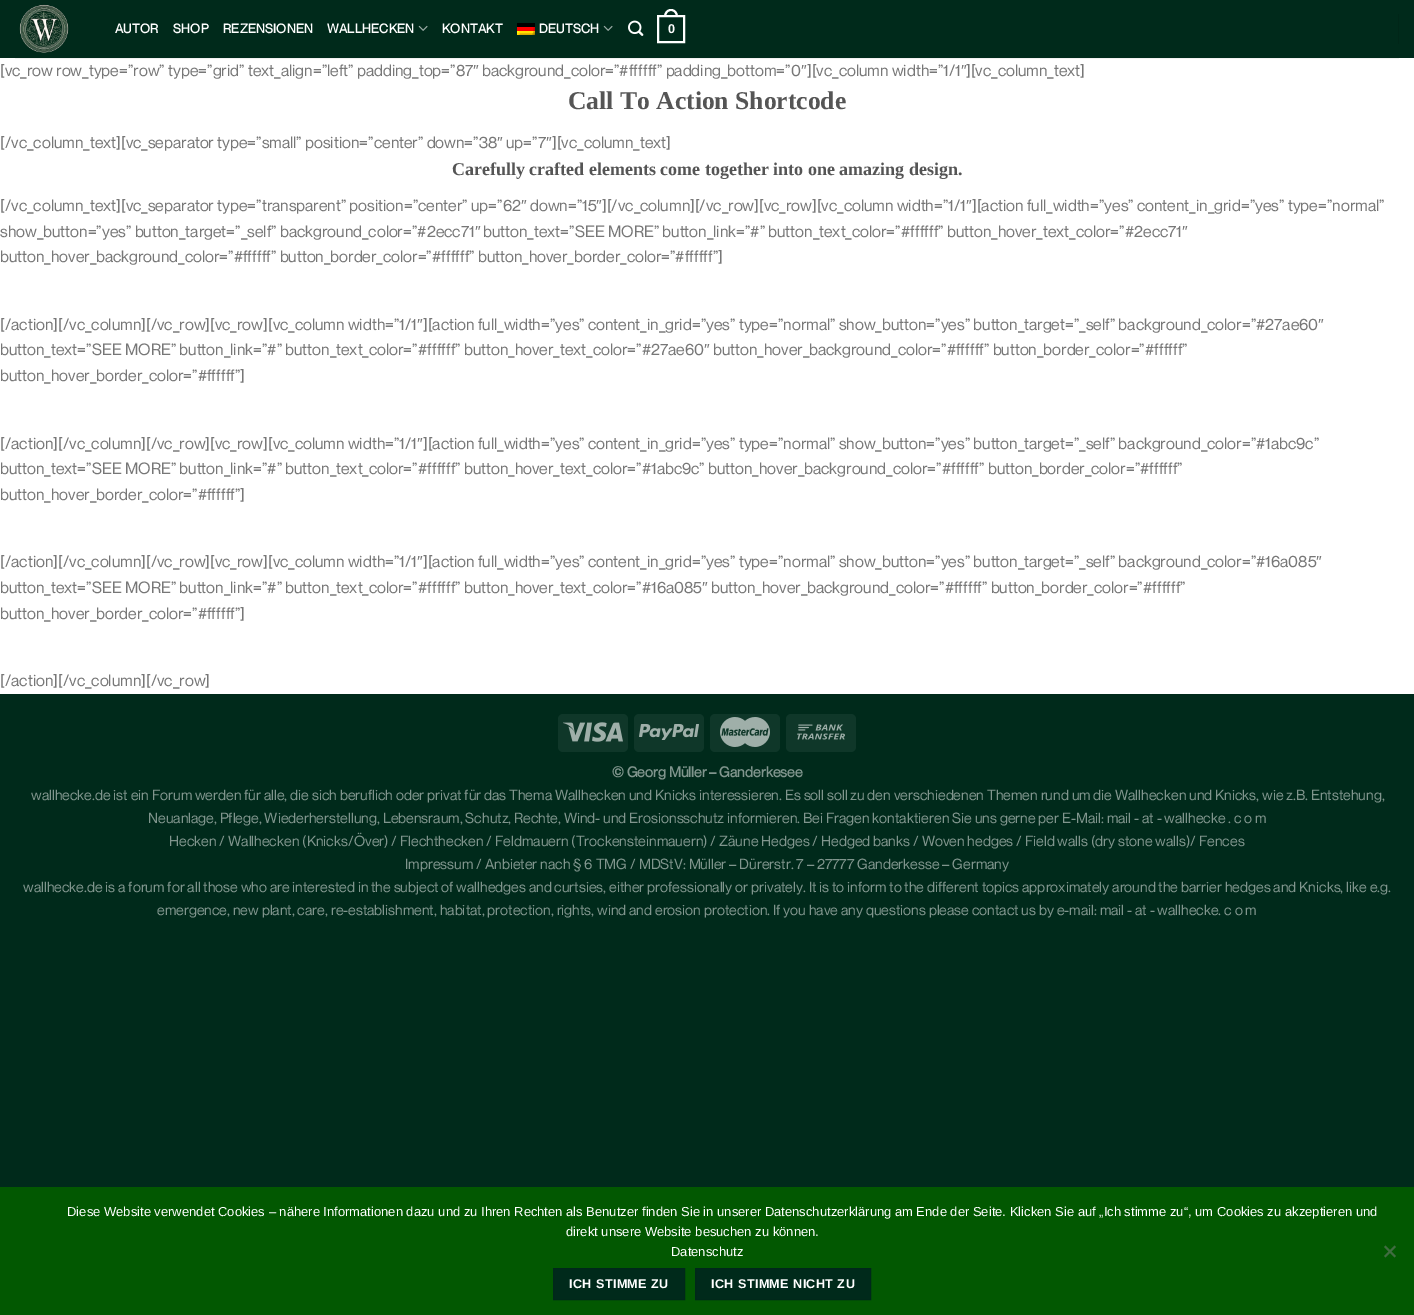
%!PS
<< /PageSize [1414 1315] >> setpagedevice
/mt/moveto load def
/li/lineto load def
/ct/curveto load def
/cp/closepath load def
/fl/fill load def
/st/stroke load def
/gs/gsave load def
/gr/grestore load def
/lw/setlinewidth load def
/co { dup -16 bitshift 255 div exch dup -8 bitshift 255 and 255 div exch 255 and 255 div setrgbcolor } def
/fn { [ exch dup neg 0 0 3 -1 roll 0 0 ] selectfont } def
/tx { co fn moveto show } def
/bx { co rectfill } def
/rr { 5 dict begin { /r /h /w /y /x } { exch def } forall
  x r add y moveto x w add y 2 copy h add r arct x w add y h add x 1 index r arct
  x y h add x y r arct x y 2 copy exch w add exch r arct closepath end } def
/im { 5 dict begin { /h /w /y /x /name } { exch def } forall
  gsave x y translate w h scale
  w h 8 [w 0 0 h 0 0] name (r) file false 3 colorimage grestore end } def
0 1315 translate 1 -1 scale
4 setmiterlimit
0 0 1414 1315 16#002A1B bx
0 58 1414 636 16#FFFFFF bx
(media/1.raw) 19 4 50 49 im
(media/2.raw) 418 25 10 6 im
(media/3.raw) 517 23 18 12 im
(media/2.raw) 603 25 10 6 im
(media/4.raw) 628 20 16 16 im
2 lw
658 16 26 26 rectstroke
671 9 mt 675.5 9 678 13 678 17 ct 664 17 li 664 13 666.5 9 671 9 ct cp 671 11 mt 674.5 11 676 14 676 17 ct 666 17 li 666 14 667.5 11 671 11 ct cp eofill
1398 14 1 30 16#002618 bx
15 58 1384 1 16#F1F1F1 bx
16#0F3729 co
558 714 70 38 5 rr fl
(media/5.raw) 563 722 60 20 im
634 714 70 38 5 rr fl
(media/6.raw) 639 724 60 16 im
710 714 70 38 5 rr fl
(media/7.raw) 720 717 50 30 im
786 714 70 38 5 rr fl
(media/8.raw) 797 724 48 16 im
0 1187 1414 128 16#025801 bx
16#416C41 co
1394.5 1245.5 mt 1396 1247 li 1385.5 1257.5 li 1384 1256 li cp fl
1384 1247 mt 1385.5 1245.5 li 1396 1256 li 1394.5 1257.5 li cp fl
16#002A1B co
553.5 1268.5 mt 684.5 1268.5 li 684.5 1299.5 li 553.5 1299.5 li cp gs fl gr
16#00281A co
1 lw
st
16#002A1B co
695.5 1268.5 mt 870.5 1268.5 li 870.5 1299.5 li 695.5 1299.5 li cp gs fl gr
16#00281A co
st
/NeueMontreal-Bold 12.75 fn
16#FFFFFF co
115 33 mt .25 0 (AUTOR) ashow
173 33 mt .25 0 (SHOP) ashow
223 33 mt .25 0 (REZENSIONEN) ashow
327 33 mt .25 0 (WALLHECKEN) ashow
442 33 mt .25 0 (KONTAKT) ashow
539 33 mt .25 0 (DEUTSCH) ashow
/LiberationSans-Bold 12.75 fn
668 33 mt .25 0 (0) ashow
([vc_row row_type=”row” type=”grid” text_align=”left” padding_top=”87) 0 76 /NeueMontreal-Regular 16 16#777777 tx
(″) 473 76 /LiberationSans-Regular 16 16#777777 tx
(background_color=”#ffffff” padding_bottom=”0) 482 76 /NeueMontreal-Regular 16 16#777777 tx
(″) 801 76 /LiberationSans-Regular 16 16#777777 tx
(][vc_column width=”1/1) 807 76 /NeueMontreal-Regular 16 16#777777 tx
(″) 961 76 /LiberationSans-Regular 16 16#777777 tx
(][vc_column_text]) 966 76 /NeueMontreal-Regular 16 16#777777 tx
(Call To Action Shortcode) 568 109 /LiberationSerif-Bold 25.6 16#555555 tx
([/vc_column_text][vc_separator type=”small” position=”center” down=”38) 0 148 /NeueMontreal-Regular 16 16#777777 tx
(″) 497 148 /LiberationSans-Regular 16 16#777777 tx
(up=”7) 506 148 /NeueMontreal-Regular 16 16#777777 tx
(″) 546 148 /LiberationSans-Regular 16 16#777777 tx
(][vc_column_text]) 552 148 /NeueMontreal-Regular 16 16#777777 tx
(Carefully crafted elements come together into one amazing design.) 452 175 /LiberationSerif-Bold 18 16#555555 tx
([/vc_column_text][vc_separator type=”transparent” position=”center” up=”62) 0 211 /NeueMontreal-Regular 16 16#777777 tx
(″) 521 211 /LiberationSans-Regular 16 16#777777 tx
(down=”15) 530 211 /NeueMontreal-Regular 16 16#777777 tx
(″) 596 211 /LiberationSans-Regular 16 16#777777 tx
(][/vc_column][/vc_row][vc_row][vc_column width=”1/1) 602 211 /NeueMontreal-Regular 16 16#777777 tx
(″) 966 211 /LiberationSans-Regular 16 16#777777 tx
(][action full_width=”yes” content_in_grid=”yes” type=”normal”) 972 211 /NeueMontreal-Regular 16 16#777777 tx
(show_button=”yes” button_target=”_self” background_color=”#2ecc71) 0 237 /NeueMontreal-Regular 16 16#777777 tx
(″) 475 237 /LiberationSans-Regular 16 16#777777 tx
(button_text=”SEE MORE” button_link=”#” button_text_color=”#ffffff” button_hover_text_color=”#2ecc71) 483 237 /NeueMontreal-Regular 16 16#777777 tx
(″) 1182 237 /LiberationSans-Regular 16 16#777777 tx
(button_hover_background_color=”#ffffff” button_border_color=”#ffffff” button_hover_border_color=”#ffffff”]) 0 262 /NeueMontreal-Regular 16 16#777777 tx
([/action][/vc_column][/vc_row][vc_row][vc_column width=”1/1) 0 330 /NeueMontreal-Regular 16 16#777777 tx
(″) 417 330 /LiberationSans-Regular 16 16#777777 tx
(][action full_width=”yes” content_in_grid=”yes” type=”normal” show_button=”yes” button_target=”_self” background_color=”#27ae60) 423 330 /NeueMontreal-Regular 16 16#777777 tx
(″) 1318 330 /LiberationSans-Regular 16 16#777777 tx
(button_text=”SEE MORE” button_link=”#” button_text_color=”#ffffff” button_hover_text_color=”#27ae60) 0 355 /NeueMontreal-Regular 16 16#777777 tx
(″) 704 355 /LiberationSans-Regular 16 16#777777 tx
(button_hover_background_color=”#ffffff” button_border_color=”#ffffff”) 713 355 /NeueMontreal-Regular 16 16#777777 tx
(button_hover_border_color=”#ffffff”]) 0 381 /NeueMontreal-Regular 16 16#777777 tx
([/action][/vc_column][/vc_row][vc_row][vc_column width=”1/1) 0 449 /NeueMontreal-Regular 16 16#777777 tx
(″) 417 449 /LiberationSans-Regular 16 16#777777 tx
(][action full_width=”yes” content_in_grid=”yes” type=”normal” show_button=”yes” button_target=”_self” background_color=”#1abc9c”) 423 449 /NeueMontreal-Regular 16 16#777777 tx
(button_text=”SEE MORE” button_link=”#” button_text_color=”#ffffff” button_hover_text_color=”#1abc9c” button_hover_background_color=”#ffffff” button_border_color=”#ffffff”) 0 474 /NeueMontreal-Regular 16 16#777777 tx
(button_hover_border_color=”#ffffff”]) 0 500 /NeueMontreal-Regular 16 16#777777 tx
([/action][/vc_column][/vc_row][vc_row][vc_column width=”1/1) 0 567 /NeueMontreal-Regular 16 16#777777 tx
(″) 417 567 /LiberationSans-Regular 16 16#777777 tx
(][action full_width=”yes” content_in_grid=”yes” type=”normal” show_button=”yes” button_target=”_self” background_color=”#16a085) 423 567 /NeueMontreal-Regular 16 16#777777 tx
(″) 1316 567 /LiberationSans-Regular 16 16#777777 tx
(button_text=”SEE MORE” button_link=”#” button_text_color=”#ffffff” button_hover_text_color=”#16a085) 0 593 /NeueMontreal-Regular 16 16#777777 tx
(″) 702 593 /LiberationSans-Regular 16 16#777777 tx
(button_hover_background_color=”#ffffff” button_border_color=”#ffffff”) 711 593 /NeueMontreal-Regular 16 16#777777 tx
(button_hover_border_color=”#ffffff”]) 0 619 /NeueMontreal-Regular 16 16#777777 tx
([/action][/vc_column][/vc_row]) 0 686 /NeueMontreal-Regular 16 16#777777 tx
(© Georg Müller – Ganderkesee) 612 777 /NeueMontreal-Bold 14.4 16#80958D tx
(wallhecke.de ist ein Forum werden für alle, die sich beruflich oder privat für das Thema Wallhecken und Knicks interessieren. Es soll soll zu den verschiedenen Themen rund um die Wallhecken und Knicks, wie z.B. Entstehung,) 31 800 /NeueMontreal-Regular 14.4 16#80958D tx
(Neuanlage, Pflege, Wiederherstellung, Lebensraum, Schutz, Rechte, Wind- und Erosionsschutz informieren. Bei Fragen kontaktieren Sie uns gerne per E-Mail: mail - at - wallhecke . c o m) 148 823 /NeueMontreal-Regular 14.4 16#80958D tx
(Hecken / Wallhecken \(Knicks/Över\) / Flechthecken / Feldmauern \(Trockensteinmauern\) / Zäune Hedges / Hedged banks / Woven hedges / Field walls \(dry stone walls\)/ Fences) 169 846 /NeueMontreal-Regular 14.4 16#80958D tx
(Impressum / Anbieter nach § 6 TMG / MDStV: Müller – Dürerstr. 7 – 27777 Ganderkesse – Germany) 405 869 /NeueMontreal-Regular 14.4 16#80958D tx
(wallhecke.de is a forum for all those who are interested in the subject of wallhedges and curtsies, either professionally or privately. It is to inform to the different topics approximately around the barrier hedges and Knicks, like e.g.) 23 892 /NeueMontreal-Regular 14.4 16#80958D tx
(emergence, new plant, care, re-establishment, habitat, protection, rights, wind and erosion protection. If you have any questions please contact us by e-mail: mail - at - wallhecke. c o m) 157 915 /NeueMontreal-Regular 14.4 16#80958D tx
(Diese Website verwendet Cookies – nähere Informationen dazu und zu Ihren Rechten als Benutzer finden Sie in unserer Datenschutzerklärung am Ende der Seite. Klicken Sie auf „Ich stimme zu“, um Cookies zu akzeptieren und) 67 1216 /LiberationSans-Regular 13 16#FFFFFF tx
(direkt unsere Website besuchen zu können.) 566 1236 /LiberationSans-Regular 13 16#FFFFFF tx
(Datenschutz) 671 1256 /LiberationSans-Regular 13 16#FFFFFF tx
/LiberationSans-Bold 12.6 fn
569 1288 mt .4 0 (ICH STIMME ZU) ashow
711 1288 mt .4 0 (ICH STIMME NICHT ZU) ashow
showpage
